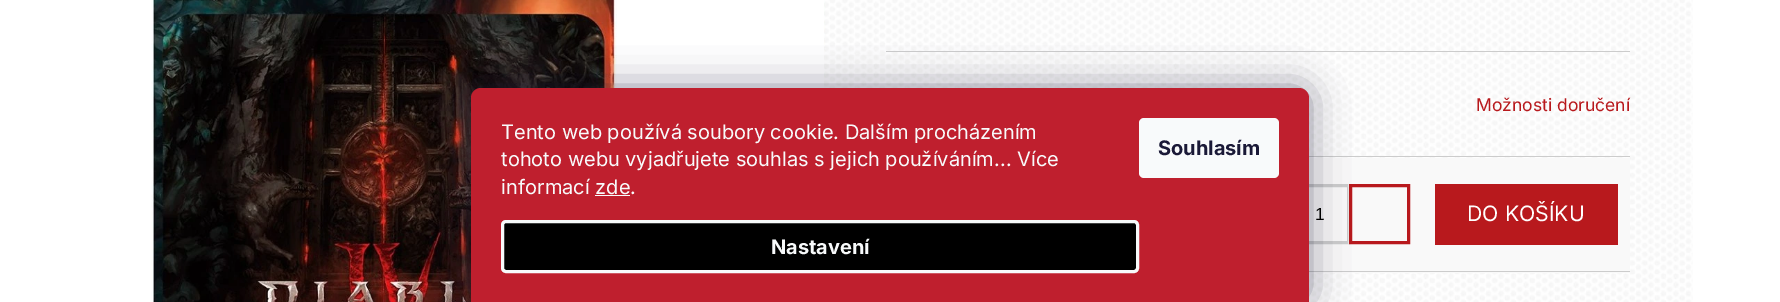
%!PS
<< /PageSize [1780 302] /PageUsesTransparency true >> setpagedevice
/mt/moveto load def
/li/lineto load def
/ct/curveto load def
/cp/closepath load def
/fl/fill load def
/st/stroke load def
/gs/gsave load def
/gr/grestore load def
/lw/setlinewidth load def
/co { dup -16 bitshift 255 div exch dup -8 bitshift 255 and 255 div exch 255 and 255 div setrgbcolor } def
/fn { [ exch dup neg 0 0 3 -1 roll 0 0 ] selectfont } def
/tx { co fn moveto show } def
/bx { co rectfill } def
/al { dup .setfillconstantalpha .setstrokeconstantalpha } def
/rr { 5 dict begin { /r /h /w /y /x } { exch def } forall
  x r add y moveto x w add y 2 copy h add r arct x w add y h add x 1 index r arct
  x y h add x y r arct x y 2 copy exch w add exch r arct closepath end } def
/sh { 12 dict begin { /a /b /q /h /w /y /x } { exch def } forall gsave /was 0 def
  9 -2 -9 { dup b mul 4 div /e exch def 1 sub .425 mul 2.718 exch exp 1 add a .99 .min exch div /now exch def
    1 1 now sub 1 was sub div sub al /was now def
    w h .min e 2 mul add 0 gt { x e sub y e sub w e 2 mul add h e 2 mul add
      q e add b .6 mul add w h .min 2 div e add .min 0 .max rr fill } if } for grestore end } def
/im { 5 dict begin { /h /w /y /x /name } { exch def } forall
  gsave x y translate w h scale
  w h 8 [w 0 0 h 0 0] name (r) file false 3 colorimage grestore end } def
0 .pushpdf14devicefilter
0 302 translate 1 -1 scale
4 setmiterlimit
0 0 1780 302 16#FFFFFF bx
(media/1.raw) 151 0 466 302 im
(media/2.raw) 824 0 869 302 im
886 51 744 1 16#CCCCCC bx
1309 156 321 1 16#CCCCCC bx
1309 158 321 115 16#F9F9F9 bx
1309 271 321 1 16#CCCCCC bx
3 lw
1291.5 185.5 57 57 rectstroke
1348 184 1 60 16#E6E6E6 bx
16#B8191D co
1350.5 185.5 58 57 rectstroke
16#1B1939 co
471 88 838 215 10 19 .5 sh
16#BF1F2E co
481 88 mt 1299 88 li 1304.5 88 1309 92.5 1309 98 ct 1309 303 li 471 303 li 471 98 li 471 92.5 475.5 88 481 88 ct cp fl
595 195 35 1 16#F8FAFB bx
16#000000 co
502.5 221.5 635 50 3.5 rr gs fl gr
16#F8FAFB co
st
1139 118 140 60 5 rr fl
1435 184 183 61 16#B8191D bx
(Tento web používá soubory cookie. Dalším procházením) 501 139 /Inter-Regular 20 16#F8FAFB tx
(tohoto webu vyjadřujete souhlas s jejich používáním... Více) 501 166 /Inter-Regular 20 16#F8FAFB tx
(informací zde.) 501 194 /Inter-Regular 20 16#F8FAFB tx
(Nastavení) 771 254 /Inter-Bold 20 16#F8FAFB tx
(Souhlasím) 1158 155 /Inter-Bold 20 16#1A1937 tx
(Možnosti doručení) 1476 111 /Inter-Regular 17.5 16#B8191D tx
(1) 1315 220 /LiberationSans-Regular 17.5 16#000000 tx
(DO KOŠÍKU) 1467 221 /Inter-Regular 21.25 16#FFFFFF tx
.poppdf14devicefilter showpage
